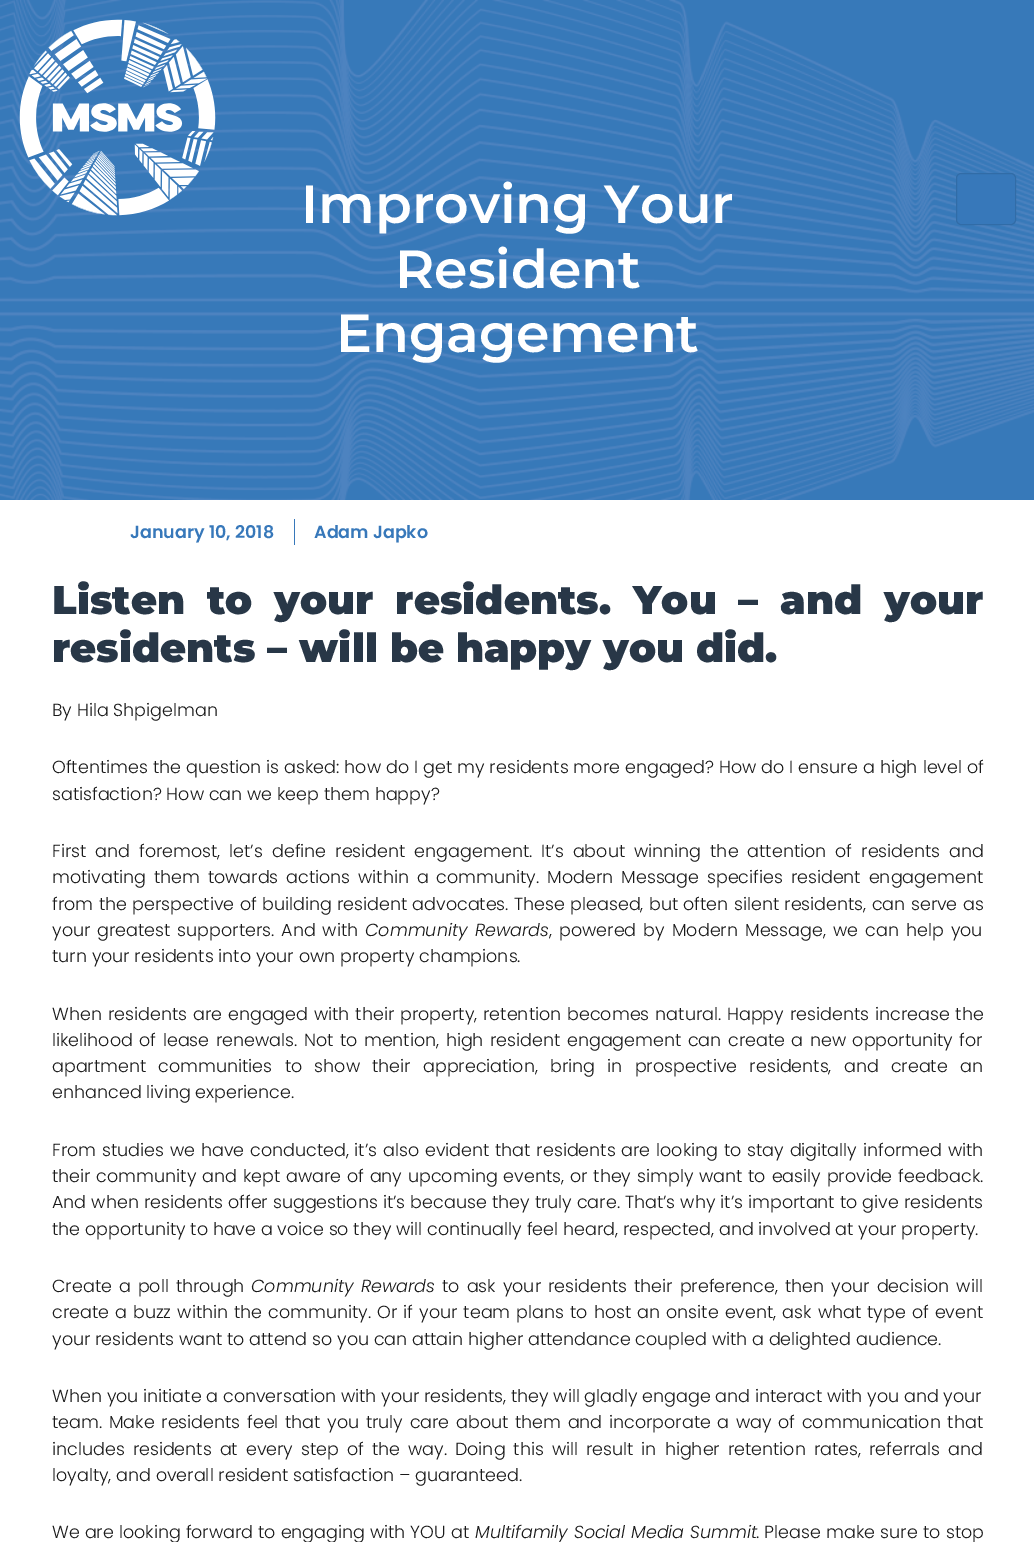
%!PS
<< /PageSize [1034 1542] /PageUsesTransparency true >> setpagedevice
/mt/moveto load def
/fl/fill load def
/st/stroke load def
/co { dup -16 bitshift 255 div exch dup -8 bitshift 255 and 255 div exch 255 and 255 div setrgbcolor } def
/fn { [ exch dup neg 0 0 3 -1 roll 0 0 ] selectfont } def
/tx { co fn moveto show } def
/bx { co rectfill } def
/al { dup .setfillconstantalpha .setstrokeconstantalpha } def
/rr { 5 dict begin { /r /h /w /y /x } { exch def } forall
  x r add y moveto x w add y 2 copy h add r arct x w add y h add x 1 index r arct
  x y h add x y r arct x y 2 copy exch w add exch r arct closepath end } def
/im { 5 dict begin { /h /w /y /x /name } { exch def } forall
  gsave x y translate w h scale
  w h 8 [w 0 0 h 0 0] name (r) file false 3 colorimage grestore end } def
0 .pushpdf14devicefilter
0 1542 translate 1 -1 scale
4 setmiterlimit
0 0 1034 1542 16#FFFFFF bx
(media/2.raw) 0 0 1034 500 im
(media/1.raw) 19 19 197 197 im
16#3778BA co
956 173 60 52 5 rr fl
0.1 al
16#000000 co
956.5 173.5 59 51 4.5 rr st
1 al
294 519 1 26 16#3778BA bx
(Improving Your) 301 223 /Montserrat-SemiBold 53.75 16#FFFFFF tx
(Resident) 395 288 /Montserrat-SemiBold 53.75 16#FFFFFF tx
(Engagement) 336 352 /Montserrat-SemiBold 53.75 16#FFFFFF tx
(January 10, 2018) 130 538 /Poppins-SemiBold 17.5 16#3778BA tx
(Adam Japko) 314 538 /Poppins-SemiBold 17.5 16#3778BA tx
/Montserrat-Black 40 fn
16#283747 co
52 614 mt 10 0 32 (Listen to your residents. You – and your) widthshow
(residents – will be happy you did.) 52 662 /Montserrat-Black 40 16#283747 tx
(By Hila Shpigelman) 52 716 /Poppins-Light 17.5 16#1A1A1A tx
52 773 mt .25 0 32 (Oftentimes the question is asked: how do I get my residents more engaged? How do I ensure a high level of) widthshow
(satisfaction? How can we keep them happy?) 52 800 /Poppins-Light 17.5 16#1A1A1A tx
52 857 mt 4.25 0 32 (First and foremost, let’s define resident engagement. It’s about winning the attention of residents and) widthshow
52 883 mt 3.1 0 32 (motivating them towards actions within a community. Modern Message specifies resident engagement) widthshow
52 910 mt .6 0 32 (from the perspective of building resident advocates. These pleased, but often silent residents, can serve as) widthshow
52 936 mt 2.25 0 32 (your greatest supporters. And with) widthshow
/Poppins-LightItalic 17.5 fn
365 936 mt 2.25 0 32 (Community Rewards) widthshow
/Poppins-Light 17.5 fn
549 936 mt 2.25 0 32 (, powered by Modern Message, we can help you) widthshow
(turn your residents into your own property champions.) 52 962 /Poppins-Light 17.5 16#1A1A1A tx
52 1020 mt 1.2 0 32 (When residents are engaged with their property, retention becomes natural. Happy residents increase the) widthshow
52 1046 mt 1.75 0 32 (likelihood of lease renewals. Not to mention, high resident engagement can create a new opportunity for) widthshow
52 1072 mt 7.5 0 32 (apartment communities to show their appreciation, bring in prospective residents, and create an) widthshow
(enhanced living experience.) 52 1098 /Poppins-Light 17.5 16#1A1A1A tx
52 1156 mt 1.1 0 32 (From studies we have conducted, it’s also evident that residents are looking to stay digitally informed with) widthshow
52 1182 mt 1.1 0 32 (their community and kept aware of any upcoming events, or they simply want to easily provide feedback.) widthshow
52 1208 mt .3 0 32 (And when residents offer suggestions it’s because they truly care. That’s why it’s important to give residents) widthshow
(the opportunity to have a voice so they will continually feel heard, respected, and involved at your property.) 52 1235 /Poppins-Light 17.5 16#1A1A1A tx
52 1292 mt 2.25 0 32 (Create a poll through) widthshow
/Poppins-LightItalic 17.5 fn
251 1292 mt 2.25 0 32 (Community Rewards) widthshow
/Poppins-Light 17.5 fn
442 1292 mt 2.25 0 32 (to ask your residents their preference, then your decision will) widthshow
52 1318 mt 1.3 0 32 (create a buzz within the community. Or if your team plans to host an onsite event, ask what type of event) widthshow
(your residents want to attend so you can attain higher attendance coupled with a delighted audience.) 52 1345 /Poppins-Light 17.5 16#1A1A1A tx
(When you initiate a conversation with your residents, they will gladly engage and interact with you and your) 52 1402 /Poppins-Light 17.5 16#1A1A1A tx
52 1428 mt 1.9 0 32 (team. Make residents feel that you truly care about them and incorporate a way of communication that) widthshow
52 1455 mt 3.25 0 32 (includes residents at every step of the way. Doing this will result in higher retention rates, referrals and) widthshow
(loyalty, and overall resident satisfaction – guaranteed.) 52 1481 /Poppins-Light 17.5 16#1A1A1A tx
52 1538 mt .25 0 32 (We are looking forward to engaging with YOU at) widthshow
/Poppins-LightItalic 17.5 fn
475 1538 mt .5 0 32 (Multifamily Social Media Summit) widthshow
/Poppins-Light 17.5 fn
756 1538 mt .5 0 32 (. Please make sure to stop) widthshow
.poppdf14devicefilter showpage
